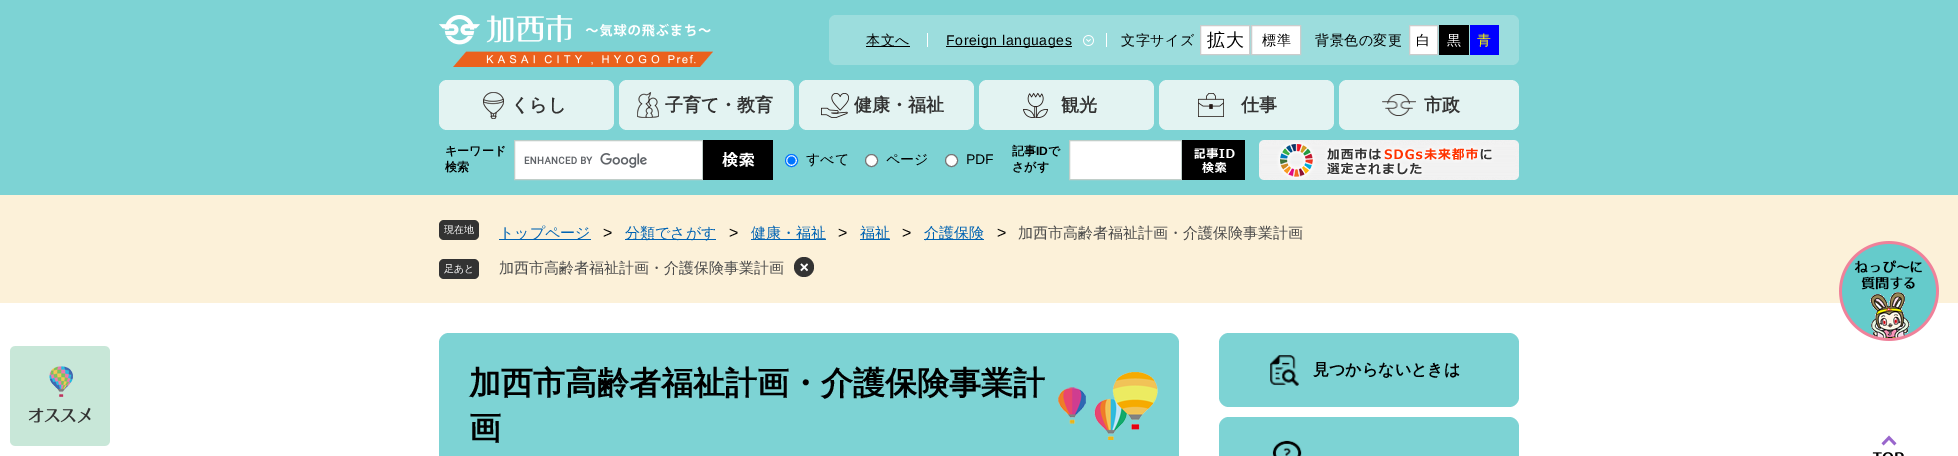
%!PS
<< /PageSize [1958 456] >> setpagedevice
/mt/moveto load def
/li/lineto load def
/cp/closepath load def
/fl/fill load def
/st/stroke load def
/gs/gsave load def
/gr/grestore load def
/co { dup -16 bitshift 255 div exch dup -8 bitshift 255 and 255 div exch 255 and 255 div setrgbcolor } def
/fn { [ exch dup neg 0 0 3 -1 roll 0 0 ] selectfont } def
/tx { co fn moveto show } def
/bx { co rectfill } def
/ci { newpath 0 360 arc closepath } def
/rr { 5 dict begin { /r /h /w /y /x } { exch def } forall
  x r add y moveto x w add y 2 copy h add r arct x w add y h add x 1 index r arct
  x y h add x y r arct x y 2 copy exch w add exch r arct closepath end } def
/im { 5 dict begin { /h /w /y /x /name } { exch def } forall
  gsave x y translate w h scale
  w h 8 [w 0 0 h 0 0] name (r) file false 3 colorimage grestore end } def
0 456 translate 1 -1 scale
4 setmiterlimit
0 0 1958 456 16#FFFFFF bx
0 0 1958 195 16#7DD3D4 bx
(media/1.raw) 439 15 274 52 im
16#9CDDDD co
829 15 690 50 7 rr fl
927 33 1 14 16#FFFFFF bx
866 46 44 1 16#000000 bx
1106 33 1 14 16#FFFFFF bx
(media/2.raw) 1083 35 11 11 im
946 46 126 1 16#000000 bx
16#FFFFFF co
1200.5 25.5 mt 1249.5 25.5 li 1249.5 54.5 li 1200.5 54.5 li cp gs fl gr
16#CCCCCC co
st
16#FFFFFF co
1251.5 25.5 mt 1300.5 25.5 li 1300.5 54.5 li 1251.5 54.5 li cp gs fl gr
16#CCCCCC co
st
16#FFFFFF co
1409.5 25.5 mt 1437.5 25.5 li 1437.5 54.5 li 1409.5 54.5 li cp gs fl gr
16#CCCCCC co
st
1439 25 30 30 16#000000 bx
1470 25 29 30 16#0000FF bx
16#E3F3F2 co
439 80 175 50 8 rr fl
(media/3.raw) 483 92 21 27 im
619 80 175 50 8 rr fl
(media/4.raw) 637 92 22 26 im
799 80 175 50 8 rr fl
(media/5.raw) 821 93 28 25 im
979 80 175 50 8 rr fl
(media/6.raw) 1023 93 25 25 im
1159 80 175 50 8 rr fl
(media/7.raw) 1198 93 26 24 im
1339 80 180 50 8 rr fl
(media/8.raw) 1382 94 34 22 im
515 141 187 38 16#FFFFFF bx
(media/9.raw) 524 153 123 15 im
16#C0CEC9 co
514.5 140.5 188 39 rectstroke
703 140 70 40 16#000000 bx
(media/10.raw) 722 152 33 15 im
16#FFFFFF co
791.5 160.5 6 ci gs fl gr
16#0075FF co
st
791.5 160.5 4 ci fl
16#FFFFFF co
871.5 160.5 6 ci gs fl gr
16#767676 co
st
16#FFFFFF co
951.5 160.5 6 ci gs fl gr
16#767676 co
st
16#FFFFFF co
1069.5 140.5 mt 1181.5 140.5 li 1181.5 179.5 li 1069.5 179.5 li cp gs fl gr
16#C0CEC9 co
st
1182 140 63 40 16#000000 bx
(media/11.raw) 1194 147 41 26 im
(media/12.raw) 1259 140 260 40 im
0 195 1958 108 16#FCF1D9 bx
16#333333 co
439 220 40 20 5 rr fl
499 239 92 1 16#0063B3 bx
625 239 91 1 16#0063B3 bx
751 239 75 1 16#0063B3 bx
860 239 30 1 16#0063B3 bx
924 239 60 1 16#0063B3 bx
16#333333 co
439 259 40 20 5 rr fl
804 267 10 ci fl
(media/13.raw) 800 263 8 9 im
(media/14.raw) 10 346 100 100 im
16#7DD3D4 co
439 333 740 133 10 rr fl
(media/15.raw) 1058 372 100 68 im
1219 333 300 74 10 rr fl
(media/16.raw) 1270 355 29 31 im
1219 417 300 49 10 rr fl
(media/17.raw) 1272 440 30 16 im
(media/18.raw) 1872 435 32 21 im
(media/19.raw) 1839 241 100 100 im
/WenQuanYiZenHei-Medium 14 fn
16#000000 co
866 45 mt .6 0 (本文へ) ashow
/LiberationSans-Regular 14 fn
946 45 mt .6 0 (Foreign languages) ashow
/WenQuanYiZenHei-Medium 14 fn
1121 45 mt .5 0 (文字サイズ) ashow
/WenQuanYiZenHei-Medium 18 fn
1207 46 mt .5 0 (拡大) ashow
/WenQuanYiZenHei-Medium 14 fn
1262 45 mt .5 0 (標準) ashow
1315 45 mt .5 0 (背景色の変更) ashow
1416 45 mt .5 0 (白) ashow
16#FFFFFF co
1447 45 mt .5 0 (黒) ashow
16#FFFF00 co
1477 45 mt .5 0 (青) ashow
(くらし) 511 111 /WenQuanYiZenHei-Bold 18 16#333333 tx
(子育て・教育) 665 111 /WenQuanYiZenHei-Bold 18 16#333333 tx
(健康・福祉) 854 111 /WenQuanYiZenHei-Bold 18 16#333333 tx
(観光) 1061 111 /WenQuanYiZenHei-Bold 18 16#333333 tx
(仕事) 1241 111 /WenQuanYiZenHei-Bold 18 16#333333 tx
(市政) 1424 111 /WenQuanYiZenHei-Bold 18 16#333333 tx
(キーワード) 445 155 /WenQuanYiZenHei-Bold 12 16#000000 tx
(検索) 445 171 /WenQuanYiZenHei-Bold 12 16#000000 tx
(すべて) 806 164 /WenQuanYiZenHei-Medium 14 16#000000 tx
(ページ) 886 164 /WenQuanYiZenHei-Medium 14 16#000000 tx
(PDF) 966 164 /LiberationSans-Regular 14 16#000000 tx
(記事) 1012 155 /WenQuanYiZenHei-Bold 12 16#000000 tx
(ID) 1036 155 /LiberationSans-Bold 12 16#000000 tx
(で) 1048 155 /WenQuanYiZenHei-Bold 12 16#000000 tx
(さがす) 1012 171 /WenQuanYiZenHei-Bold 12 16#000000 tx
(現在地) 444 233 /WenQuanYiZenHei-Medium 10 16#FFFFFF tx
(トップページ) 499 238 /WenQuanYiZenHei-Medium 15 16#0063B3 tx
(>) 603 238 /LiberationSans-Regular 16 16#000000 tx
(分類でさがす) 625 238 /WenQuanYiZenHei-Medium 15 16#0063B3 tx
(>) 729 238 /LiberationSans-Regular 16 16#000000 tx
(健康・福祉) 751 238 /WenQuanYiZenHei-Medium 15 16#0063B3 tx
(>) 838 238 /LiberationSans-Regular 16 16#000000 tx
(福祉) 860 238 /WenQuanYiZenHei-Medium 15 16#0063B3 tx
(>) 902 238 /LiberationSans-Regular 16 16#000000 tx
(介護保険) 924 238 /WenQuanYiZenHei-Medium 15 16#0063B3 tx
(>) 997 238 /LiberationSans-Regular 16 16#000000 tx
(加西市高齢者福祉計画・介護保険事業計画) 1018 238 /WenQuanYiZenHei-Medium 15 16#4B4B4B tx
(足あと) 444 272 /WenQuanYiZenHei-Medium 10 16#FFFFFF tx
(加西市高齢者福祉計画・介護保険事業計画) 499 273 /WenQuanYiZenHei-Medium 15 16#4B4B4B tx
(加西市高齢者福祉計画・介護保険事業計) 469 394 /WenQuanYiZenHei-Bold 32 16#000000 tx
(画) 469 439 /WenQuanYiZenHei-Bold 32 16#000000 tx
(見つからないときは) 1313 375 /WenQuanYiZenHei-Bold 16 16#000000 tx
showpage
